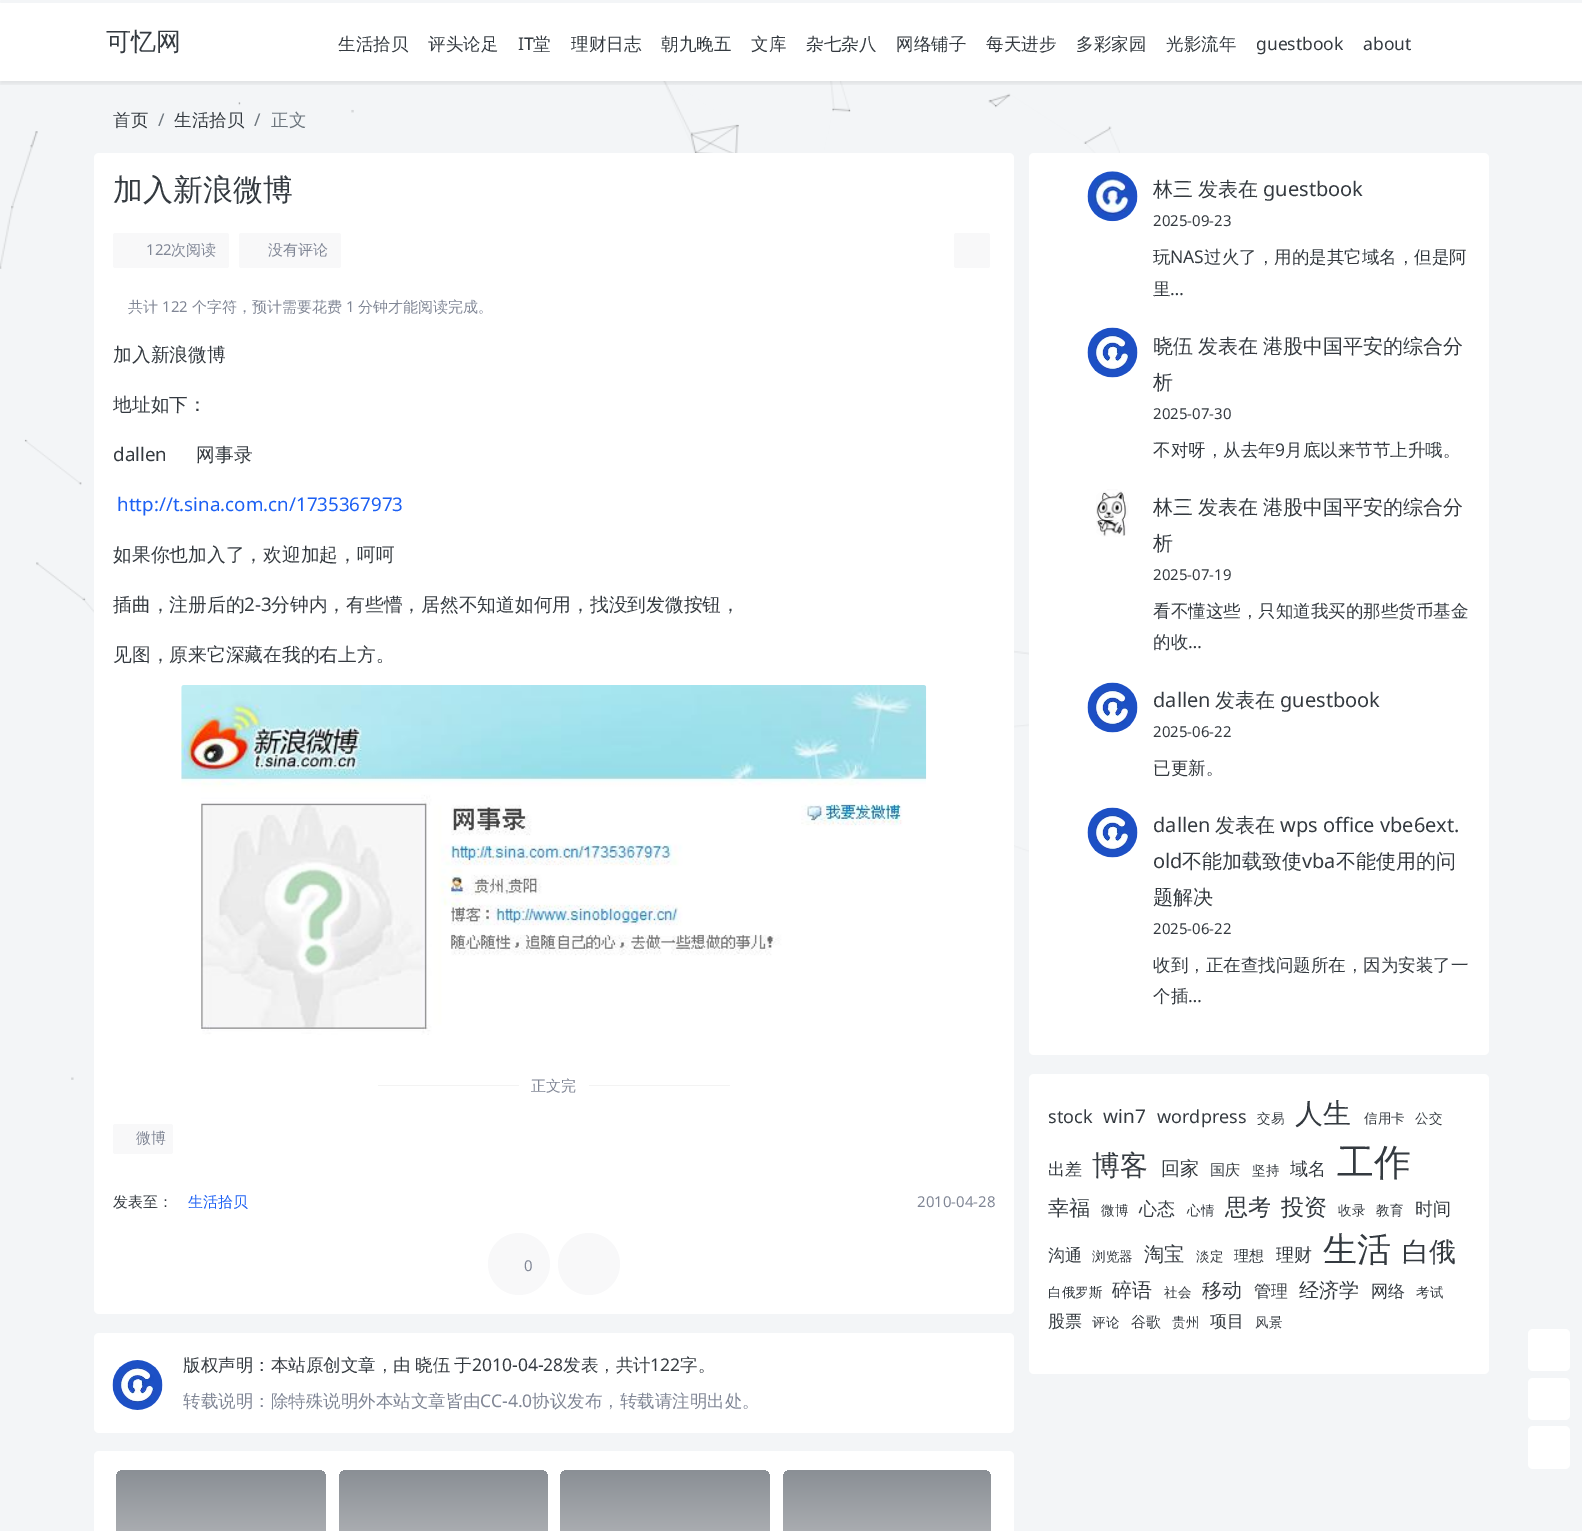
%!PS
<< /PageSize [1582 1531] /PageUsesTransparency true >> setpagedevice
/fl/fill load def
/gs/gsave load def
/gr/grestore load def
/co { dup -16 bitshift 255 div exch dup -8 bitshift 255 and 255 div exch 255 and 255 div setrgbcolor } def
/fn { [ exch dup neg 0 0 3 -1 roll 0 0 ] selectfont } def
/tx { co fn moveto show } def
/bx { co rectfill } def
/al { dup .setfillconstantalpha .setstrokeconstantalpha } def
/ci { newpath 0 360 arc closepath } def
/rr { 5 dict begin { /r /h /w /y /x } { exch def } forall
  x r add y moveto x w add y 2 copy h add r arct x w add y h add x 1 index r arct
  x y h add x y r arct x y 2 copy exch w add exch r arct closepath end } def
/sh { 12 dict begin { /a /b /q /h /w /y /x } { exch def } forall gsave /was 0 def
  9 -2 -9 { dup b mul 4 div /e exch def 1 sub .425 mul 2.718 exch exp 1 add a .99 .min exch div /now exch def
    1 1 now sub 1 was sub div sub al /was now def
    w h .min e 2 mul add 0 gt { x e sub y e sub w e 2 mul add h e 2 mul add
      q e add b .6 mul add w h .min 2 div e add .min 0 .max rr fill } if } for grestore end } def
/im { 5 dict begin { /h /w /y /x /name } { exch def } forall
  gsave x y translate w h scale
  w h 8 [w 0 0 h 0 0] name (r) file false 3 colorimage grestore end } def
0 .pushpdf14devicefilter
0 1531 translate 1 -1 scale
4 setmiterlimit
0 0 1582 1531 16#F3F5F7 bx
0 0 1582 81 16#FFFFFF bx
(media/6.raw) 0 81 1120 999 im
gs
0 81 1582 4 rectclip
16#000000 co
0 3 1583 81 0 2.5 .07 sh
gr
16#F3F5F7 co
0 0 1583 3 1.5 rr fl
16#FFFFFF co
94 153 920 1161 5 rr fl
16#F8F8F9 co
113 233 116 35 2.5 rr fl
239 233 102 35 2.5 rr fl
954 233 36 35 2.5 rr fl
(media/1.raw) 181 685 746 350 im
378 1085 141 1 16#F3F3F3 bx
589 1085 141 1 16#F3F3F3 bx
16#F8F8F9 co
113 1124 60 30 2.5 rr fl
519 1264 31 ci fl
589 1264 31 ci fl
16#FFFFFF co
94 1333 920 100 5 rr fl
(media/2.raw) 112 1360 51 50 im
94 1451 920 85 5 rr fl
gs 116 1470 210 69 8 rr clip newpath
<< /ShadingType 2 /ColorSpace /DeviceRGB /Coords [221 1470 221 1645] /Extend [true true] /Function << /FunctionType 2 /Domain [0 1] /C0 [.541 .561 .584] /C1 [.886 .886 .89] /N 1 >> >> shfill gr
gs 339 1470 209 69 8 rr clip newpath
<< /ShadingType 2 /ColorSpace /DeviceRGB /Coords [443 1470 443 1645] /Extend [true true] /Function << /FunctionType 2 /Domain [0 1] /C0 [.541 .561 .584] /C1 [.886 .886 .89] /N 1 >> >> shfill gr
gs 560 1470 210 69 8 rr clip newpath
<< /ShadingType 2 /ColorSpace /DeviceRGB /Coords [665 1470 665 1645] /Extend [true true] /Function << /FunctionType 2 /Domain [0 1] /C0 [.541 .561 .584] /C1 [.886 .886 .89] /N 1 >> >> shfill gr
gs 783 1470 208 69 8 rr clip newpath
<< /ShadingType 2 /ColorSpace /DeviceRGB /Coords [887 1470 887 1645] /Extend [true true] /Function << /FunctionType 2 /Domain [0 1] /C0 [.541 .561 .584] /C1 [.886 .886 .89] /N 1 >> >> shfill gr
1029 153 460 902 5 rr fl
(media/3.raw) 1087 171 51 51 im
(media/4.raw) 1087 327 51 51 im
(media/5.raw) 1096 489 33 48 im
(media/4.raw) 1087 682 51 51 im
(media/4.raw) 1087 807 51 51 im
1029 1074 460 300 5 rr fl
1528 1329 42 42 5 rr fl
1528 1378 42 42 5 rr fl
1528 1426 42 43 5 rr fl
(可忆网) 106 50 /WenQuanYiZenHei-Medium 25 16#343A40 tx
(生活拾贝) 338 50 /WenQuanYiZenHei-Medium 17.5 16#343A40 tx
(评头论足) 428 50 /WenQuanYiZenHei-Medium 17.5 16#343A40 tx
(IT) 518 50 /NotoSans-Regular 17.5 16#343A40 tx
(堂) 533 50 /WenQuanYiZenHei-Medium 17.5 16#343A40 tx
(理财日志) 571 50 /WenQuanYiZenHei-Medium 17.5 16#343A40 tx
(朝九晚五) 661 50 /WenQuanYiZenHei-Medium 17.5 16#343A40 tx
(文库) 751 50 /WenQuanYiZenHei-Medium 17.5 16#343A40 tx
(杂七杂八) 806 50 /WenQuanYiZenHei-Medium 17.5 16#343A40 tx
(网络铺子) 896 50 /WenQuanYiZenHei-Medium 17.5 16#343A40 tx
(每天进步) 986 50 /WenQuanYiZenHei-Medium 17.5 16#343A40 tx
(多彩家园) 1076 50 /WenQuanYiZenHei-Medium 17.5 16#343A40 tx
(光影流年) 1166 50 /WenQuanYiZenHei-Medium 17.5 16#343A40 tx
(guestbook) 1256 50 /NotoSans-Regular 17.5 16#343A40 tx
(about) 1363 50 /NotoSans-Regular 17.5 16#343A40 tx
(首页) 113 126 /WenQuanYiZenHei-Medium 17.5 16#343A40 tx
(/) 158 126 /NotoSans-Regular 17.5 16#6C757D tx
(生活拾贝) 174 126 /WenQuanYiZenHei-Medium 17.5 16#343A40 tx
(/) 254 126 /NotoSans-Regular 17.5 16#6C757D tx
(正文) 271 126 /WenQuanYiZenHei-Medium 17.5 16#6C757D tx
(加入新浪微博) 113 200 /WenQuanYiZenHei-Medium 30 16#343A40 tx
(122) 146 255 /NotoSans-Regular 15 16#808695 tx
(次阅读) 171 255 /WenQuanYiZenHei-Medium 15 16#808695 tx
(没有评论) 268 255 /WenQuanYiZenHei-Medium 15 16#808695 tx
(共计) 128 312 /WenQuanYiZenHei-Medium 15 16#808695 tx
(122) 162 312 /NotoSans-Regular 15 16#808695 tx
(个字符，预计需要花费) 192 312 /WenQuanYiZenHei-Medium 15 16#808695 tx
(1) 346 312 /NotoSans-Regular 15 16#808695 tx
(分钟才能阅读完成。) 358 312 /WenQuanYiZenHei-Medium 15 16#808695 tx
(加入新浪微博) 113 361 /WenQuanYiZenHei-Medium 18.75 16#343A40 tx
(地址如下：) 113 411 /WenQuanYiZenHei-Medium 18.75 16#343A40 tx
(dallen) 113 461 /NotoSans-Regular 18.75 16#343A40 tx
(网事录) 196 461 /WenQuanYiZenHei-Medium 18.75 16#343A40 tx
(http://t.sina.com.cn/1735367973) 117 511 /NotoSans-Regular 18.75 16#1C60F3 tx
(如果你也加入了，欢迎加起，呵呵) 113 561 /WenQuanYiZenHei-Medium 18.75 16#343A40 tx
(插曲，注册后的) 113 611 /WenQuanYiZenHei-Medium 18.75 16#343A40 tx
(2-3) 244 611 /NotoSans-Regular 18.75 16#343A40 tx
(分钟内，有些懵，居然不知道如何用，找没到发微按钮，) 271 611 /WenQuanYiZenHei-Medium 18.75 16#343A40 tx
(见图，原来它深藏在我的右上方。) 113 661 /WenQuanYiZenHei-Medium 18.75 16#343A40 tx
(正文完) 531 1091 /WenQuanYiZenHei-Medium 15 16#808695 tx
(微博) 136 1143 /WenQuanYiZenHei-Medium 15 16#808695 tx
(发表至：) 113 1207 /WenQuanYiZenHei-Medium 15 16#343A40 tx
(生活拾贝) 188 1207 /WenQuanYiZenHei-Medium 15 16#1C60F3 tx
(2010-04-28) 917 1207 /NotoSans-Regular 15 16#808695 tx
(0) 524 1271 /NotoSans-Regular 15 16#808695 tx
(版权声明：本站原创文章，由) 183 1371 /WenQuanYiZenHei-Medium 17.5 16#343A40 tx
(晓伍) 415 1371 /WenQuanYiZenHei-Medium 17.5 16#343A40 tx
(于) 454 1371 /WenQuanYiZenHei-Medium 17.5 16#343A40 tx
(2010-04-28) 472 1371 /NotoSans-Regular 17.5 16#343A40 tx
(发表，共计) 563 1371 /WenQuanYiZenHei-Medium 17.5 16#343A40 tx
(122) 650 1371 /NotoSans-Regular 17.5 16#343A40 tx
(字。) 680 1371 /WenQuanYiZenHei-Medium 17.5 16#343A40 tx
(转载说明：除特殊说明外本站文章皆由) 183 1407 /WenQuanYiZenHei-Medium 17.5 16#808695 tx
(CC-4.0) 480 1407 /NotoSans-Regular 17.5 16#808695 tx
(协议发布，转载请注明出处。) 532 1407 /WenQuanYiZenHei-Medium 17.5 16#808695 tx
(林三) 1153 196 /WenQuanYiZenHei-Medium 20 16#343A40 tx
(发表在) 1198 196 /WenQuanYiZenHei-Medium 20 16#343A40 tx
(guestbook) 1263 196 /NotoSans-Regular 20 16#343A40 tx
(2025-09-23) 1153 226 /NotoSans-Regular 15 16#343A40 tx
(玩) 1153 263 /WenQuanYiZenHei-Medium 17.5 16#343A40 tx
(NAS) 1170 263 /NotoSans-Regular 17.5 16#343A40 tx
(过火了，用的是其它域名，但是阿) 1204 263 /WenQuanYiZenHei-Medium 17.5 16#343A40 tx
(里) 1153 295 /WenQuanYiZenHei-Medium 17.5 16#343A40 tx
(…) 1170 295 /NotoSans-Regular 17.5 16#343A40 tx
(晓伍) 1153 353 /WenQuanYiZenHei-Medium 20 16#343A40 tx
(发表在) 1198 353 /WenQuanYiZenHei-Medium 20 16#343A40 tx
(港股中国平安的综合分) 1263 353 /WenQuanYiZenHei-Medium 20 16#343A40 tx
(析) 1153 389 /WenQuanYiZenHei-Medium 20 16#343A40 tx
(2025-07-30) 1153 419 /NotoSans-Regular 15 16#343A40 tx
(不对呀，从去年) 1153 456 /WenQuanYiZenHei-Medium 17.5 16#343A40 tx
(9) 1275 456 /NotoSans-Regular 17.5 16#343A40 tx
(月底以来节节上升哦。) 1285 456 /WenQuanYiZenHei-Medium 17.5 16#343A40 tx
(林三) 1153 514 /WenQuanYiZenHei-Medium 20 16#343A40 tx
(发表在) 1198 514 /WenQuanYiZenHei-Medium 20 16#343A40 tx
(港股中国平安的综合分) 1263 514 /WenQuanYiZenHei-Medium 20 16#343A40 tx
(析) 1153 550 /WenQuanYiZenHei-Medium 20 16#343A40 tx
(2025-07-19) 1153 580 /NotoSans-Regular 15 16#343A40 tx
(看不懂这些，只知道我买的那些货币基金) 1153 617 /WenQuanYiZenHei-Medium 17.5 16#343A40 tx
(的收) 1153 648 /WenQuanYiZenHei-Medium 17.5 16#343A40 tx
(…) 1188 648 /NotoSans-Regular 17.5 16#343A40 tx
(dallen) 1153 707 /NotoSans-Regular 20 16#343A40 tx
(发表在) 1215 707 /WenQuanYiZenHei-Medium 20 16#343A40 tx
(guestbook) 1280 707 /NotoSans-Regular 20 16#343A40 tx
(2025-06-22) 1153 737 /NotoSans-Regular 15 16#343A40 tx
(已更新。) 1153 774 /WenQuanYiZenHei-Medium 17.5 16#343A40 tx
(dallen) 1153 832 /NotoSans-Regular 20 16#343A40 tx
(发表在) 1215 832 /WenQuanYiZenHei-Medium 20 16#343A40 tx
(wps office vbe6ext.) 1280 832 /NotoSans-Regular 20 16#343A40 tx
(old) 1153 868 /NotoSans-Regular 20 16#343A40 tx
(不能加载致使) 1182 868 /WenQuanYiZenHei-Medium 20 16#343A40 tx
(vba) 1302 868 /NotoSans-Regular 20 16#343A40 tx
(不能使用的问) 1336 868 /WenQuanYiZenHei-Medium 20 16#343A40 tx
(题解决) 1153 904 /WenQuanYiZenHei-Medium 20 16#343A40 tx
(2025-06-22) 1153 934 /NotoSans-Regular 15 16#343A40 tx
(收到，正在查找问题所在，因为安装了一) 1153 971 /WenQuanYiZenHei-Medium 17.5 16#343A40 tx
(个插) 1153 1002 /WenQuanYiZenHei-Medium 17.5 16#343A40 tx
(…) 1188 1002 /NotoSans-Regular 17.5 16#343A40 tx
(stock) 1048 1123 /NotoSans-Regular 18 16#343A40 tx
(win7) 1103 1123 /NotoSans-Regular 19 16#343A40 tx
(wordpress) 1157 1123 /NotoSans-Regular 18 16#343A40 tx
(交易) 1257 1123 /WenQuanYiZenHei-Medium 13.5 16#343A40 tx
(人生) 1295 1123 /WenQuanYiZenHei-Medium 28 16#343A40 tx
(信用卡) 1364 1123 /WenQuanYiZenHei-Medium 13.5 16#343A40 tx
(公交) 1415 1123 /WenQuanYiZenHei-Medium 13.5 16#343A40 tx
(出差) 1048 1175 /WenQuanYiZenHei-Medium 17 16#343A40 tx
(博客) 1092 1175 /WenQuanYiZenHei-Medium 28 16#343A40 tx
(回家) 1161 1175 /WenQuanYiZenHei-Medium 19 16#343A40 tx
(国庆) 1210 1175 /WenQuanYiZenHei-Medium 15 16#343A40 tx
(坚持) 1252 1175 /WenQuanYiZenHei-Medium 13.5 16#343A40 tx
(域名) 1290 1175 /WenQuanYiZenHei-Medium 18 16#343A40 tx
(工作) 1337 1175 /WenQuanYiZenHei-Medium 37 16#343A40 tx
(幸福) 1048 1215 /WenQuanYiZenHei-Medium 21 16#343A40 tx
(微博) 1101 1215 /WenQuanYiZenHei-Medium 13.5 16#343A40 tx
(心态) 1139 1215 /WenQuanYiZenHei-Medium 18 16#343A40 tx
(心情) 1187 1215 /WenQuanYiZenHei-Medium 13.5 16#343A40 tx
(思考) 1225 1215 /WenQuanYiZenHei-Medium 23 16#343A40 tx
(投资) 1281 1215 /WenQuanYiZenHei-Medium 23 16#343A40 tx
(收录) 1338 1215 /WenQuanYiZenHei-Medium 13.5 16#343A40 tx
(教育) 1376 1215 /WenQuanYiZenHei-Medium 13.5 16#343A40 tx
(时间) 1415 1215 /WenQuanYiZenHei-Medium 18 16#343A40 tx
(沟通) 1048 1261 /WenQuanYiZenHei-Medium 17 16#343A40 tx
(浏览器) 1092 1261 /WenQuanYiZenHei-Medium 13.5 16#343A40 tx
(淘宝) 1144 1261 /WenQuanYiZenHei-Medium 20 16#343A40 tx
(淡定) 1196 1261 /WenQuanYiZenHei-Medium 13.5 16#343A40 tx
(理想) 1234 1261 /WenQuanYiZenHei-Medium 15 16#343A40 tx
(理财) 1276 1261 /WenQuanYiZenHei-Medium 18 16#343A40 tx
(生活) 1323 1261 /WenQuanYiZenHei-Medium 34 16#343A40 tx
(白俄) 1402 1261 /WenQuanYiZenHei-Medium 27 16#343A40 tx
(白俄罗斯) 1048 1297 /WenQuanYiZenHei-Medium 13.5 16#343A40 tx
(碎语) 1112 1297 /WenQuanYiZenHei-Medium 20 16#343A40 tx
(社会) 1164 1297 /WenQuanYiZenHei-Medium 13.5 16#343A40 tx
(移动) 1202 1297 /WenQuanYiZenHei-Medium 20 16#343A40 tx
(管理) 1254 1297 /WenQuanYiZenHei-Medium 17 16#343A40 tx
(经济学) 1299 1297 /WenQuanYiZenHei-Medium 20 16#343A40 tx
(网络) 1371 1297 /WenQuanYiZenHei-Medium 17 16#343A40 tx
(考试) 1416 1297 /WenQuanYiZenHei-Medium 13.5 16#343A40 tx
(股票) 1048 1327 /WenQuanYiZenHei-Medium 17 16#343A40 tx
(评论) 1092 1327 /WenQuanYiZenHei-Medium 13.5 16#343A40 tx
(谷歌) 1131 1327 /WenQuanYiZenHei-Medium 15 16#343A40 tx
(贵州) 1172 1327 /WenQuanYiZenHei-Medium 13.5 16#343A40 tx
(项目) 1210 1327 /WenQuanYiZenHei-Medium 17 16#343A40 tx
(风景) 1255 1327 /WenQuanYiZenHei-Medium 13.5 16#343A40 tx
.poppdf14devicefilter showpage
